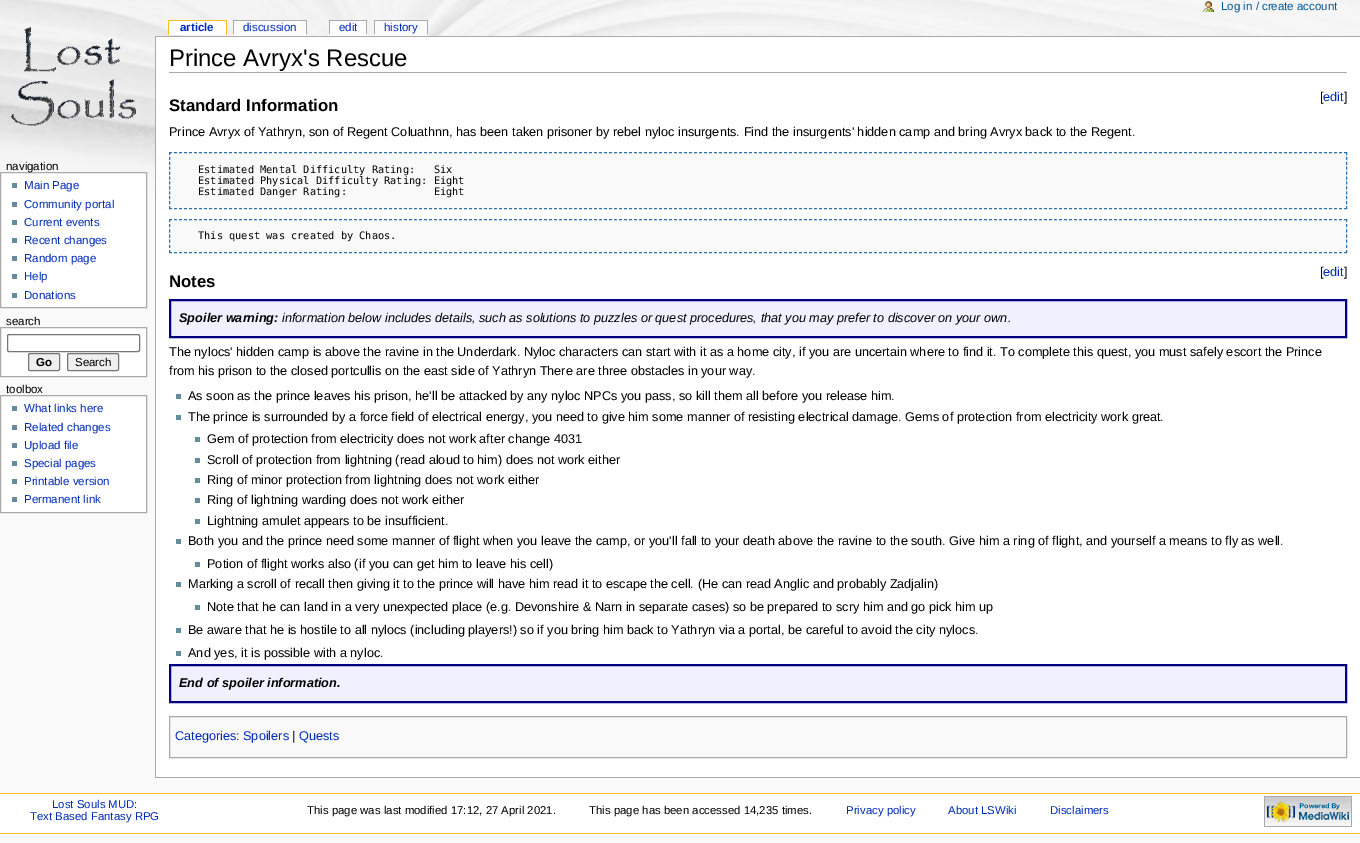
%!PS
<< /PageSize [1360 843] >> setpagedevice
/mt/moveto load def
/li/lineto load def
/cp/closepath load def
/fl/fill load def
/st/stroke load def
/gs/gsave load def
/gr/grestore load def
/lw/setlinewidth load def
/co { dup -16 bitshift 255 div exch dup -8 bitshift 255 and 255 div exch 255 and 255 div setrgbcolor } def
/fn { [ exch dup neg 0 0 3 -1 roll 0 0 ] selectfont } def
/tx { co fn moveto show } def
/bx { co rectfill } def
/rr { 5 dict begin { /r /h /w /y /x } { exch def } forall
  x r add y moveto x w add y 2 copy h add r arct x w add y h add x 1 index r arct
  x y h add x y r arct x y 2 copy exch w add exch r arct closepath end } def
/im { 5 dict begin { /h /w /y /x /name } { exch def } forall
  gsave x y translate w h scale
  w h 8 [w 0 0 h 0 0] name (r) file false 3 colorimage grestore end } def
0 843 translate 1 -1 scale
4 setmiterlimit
0 0 1360 843 16#F9F9F9 bx
(media/1.raw) 0 0 1360 194 im
(media/2.raw) 1203 1 11 11 im
(media/3.raw) 11 27 125 99 im
169 21 57 14 16#FFFFFF bx
168 20 59 1 16#FABD23 bx
226 20 1 15 16#FABD23 bx
168 20 1 15 16#FABD23 bx
233 20 74 1 16#AAAAAA bx
306 20 1 14 16#AAAAAA bx
233 20 1 14 16#AAAAAA bx
234 21 72 15 16#FBFBFB bx
329 20 38 1 16#AAAAAA bx
366 20 1 14 16#AAAAAA bx
329 20 1 14 16#AAAAAA bx
330 21 36 15 16#FBFBFB bx
374 20 54 1 16#AAAAAA bx
427 20 1 14 16#AAAAAA bx
374 20 1 14 16#AAAAAA bx
375 21 52 15 16#FBFBFB bx
16#FFFFFF co
.5 172.5 mt 146.5 172.5 li 146.5 307.5 li .5 307.5 li cp gs fl gr
16#AAAAAA co
st
12 183 5 5 16#638C9C bx
12 202 5 5 16#638C9C bx
12 220 5 5 16#638C9C bx
12 238 5 5 16#638C9C bx
12 256 5 5 16#638C9C bx
12 274 5 5 16#638C9C bx
12 293 5 5 16#638C9C bx
16#FFFFFF co
.5 327.5 mt 146.5 327.5 li 146.5 376.5 li .5 376.5 li cp gs fl gr
16#AAAAAA co
st
16#767676 co
7.5 334.5 132 17 1.5 rr st
16#EFEFEF co
28.5 353.5 31 17 1.5 rr gs fl gr
16#767676 co
st
16#EFEFEF co
67.5 353.5 51 17 1.5 rr gs fl gr
16#767676 co
st
16#FFFFFF co
.5 395.5 mt 146.5 395.5 li 146.5 512.5 li .5 512.5 li cp gs fl gr
16#AAAAAA co
st
12 406 5 5 16#638C9C bx
12 425 5 5 16#638C9C bx
12 443 5 5 16#638C9C bx
12 461 5 5 16#638C9C bx
12 479 5 5 16#638C9C bx
12 497 5 5 16#638C9C bx
156 37 1204 740 16#FFFFFF bx
155 36 1205 1 16#AAAAAA bx
155 777 1205 1 16#AAAAAA bx
155 36 1 742 16#AAAAAA bx
169 72 1178 1 16#AAAAAA bx
169 152 1178 57 16#F9F9F9 bx
16#2F6FAB co
[3 2] 0 setdash
169 152.5 mt 1347 152.5 li st
[3 1.91] 0 setdash
1346.5 152 mt 1346.5 209 li st
[3 2] 0 setdash
169 208.5 mt 1347 208.5 li st
[3 1.91] 0 setdash
169.5 152 mt 169.5 209 li st
169 219 1178 34 16#F9F9F9 bx
16#2F6FAB co
[3 2] 0 setdash
169 219.5 mt 1347 219.5 li st
[3 2.17] 0 setdash
1346.5 219 mt 1346.5 253 li st
[3 2] 0 setdash
169 252.5 mt 1347 252.5 li st
[3 2.17] 0 setdash
169.5 219 mt 169.5 253 li st
16#F0F0FF co
170 300 mt 1346 300 li 1346 337 li 170 337 li cp gs fl gr
16#000080 co
2 lw
[] 0 setdash
st
176 394 5 5 16#638C9C bx
176 415 5 5 16#638C9C bx
195 437 5 5 16#638C9C bx
195 458 5 5 16#638C9C bx
195 478 5 5 16#638C9C bx
195 498 5 5 16#638C9C bx
195 519 5 5 16#638C9C bx
176 539 5 5 16#638C9C bx
195 562 5 5 16#638C9C bx
176 582 5 5 16#638C9C bx
195 605 5 5 16#638C9C bx
176 628 5 5 16#638C9C bx
176 651 5 5 16#638C9C bx
16#F0F0FF co
170 665 mt 1346 665 li 1346 702 li 170 702 li cp gs fl gr
16#000080 co
st
16#F9F9F9 co
169.5 716.5 mt 1346.5 716.5 li 1346.5 757.5 li 169.5 757.5 li cp gs fl gr
16#AAAAAA co
1 lw
st
0 794 1360 39 16#FFFFFF bx
0 793 1360 1 16#FABD23 bx
0 833 1360 1 16#FABD23 bx
(media/4.raw) 1264 796 88 31 im
(Log in / create account) 1221 10 /LiberationSans-Regular 11.5 16#005896 tx
(article) 180 31 /LiberationSans-Bold 11.5 16#002BB8 tx
(discussion) 243 31 /LiberationSans-Regular 11.5 16#002BB8 tx
(edit) 339 31 /LiberationSans-Regular 11.5 16#002BB8 tx
(history) 384 31 /LiberationSans-Regular 11.5 16#002BB8 tx
(navigation) 6 170 /LiberationSans-Regular 11.5 16#000000 tx
(Main Page) 24 189 /LiberationSans-Regular 11.5 16#002BB8 tx
(Community portal) 24 208 /LiberationSans-Regular 11.5 16#002BB8 tx
(Current events) 24 226 /LiberationSans-Regular 11.5 16#002BB8 tx
(Recent changes) 24 244 /LiberationSans-Regular 11.5 16#002BB8 tx
(Random page) 24 262 /LiberationSans-Regular 11.5 16#002BB8 tx
(Help) 24 280 /LiberationSans-Regular 11.5 16#002BB8 tx
(Donations) 24 299 /LiberationSans-Regular 11.5 16#002BB8 tx
(search) 6 325 /LiberationSans-Regular 11.5 16#000000 tx
(Go) 36 366 /LiberationSans-Bold 11.5 16#000000 tx
(Search) 75 366 /LiberationSans-Regular 11.5 16#000000 tx
(toolbox) 6 393 /LiberationSans-Regular 11.5 16#000000 tx
(What links here) 24 412 /LiberationSans-Regular 11.5 16#002BB8 tx
(Related changes) 24 431 /LiberationSans-Regular 11.5 16#002BB8 tx
(Upload file) 24 449 /LiberationSans-Regular 11.5 16#002BB8 tx
(Special pages) 24 467 /LiberationSans-Regular 11.5 16#002BB8 tx
(Printable version) 24 485 /LiberationSans-Regular 11.5 16#002BB8 tx
(Permanent link) 24 503 /LiberationSans-Regular 11.5 16#002BB8 tx
(Prince Avryx's Rescue) 169 66 /LiberationSans-Regular 23.9 16#000000 tx
(Standard Information) 169 111 /LiberationSans-Bold 16.75 16#000000 tx
([) 1320 101 /LiberationSans-Regular 12.7 16#000000 tx
(edit) 1323 101 /LiberationSans-Regular 12.7 16#002BB8 tx
(]) 1344 101 /LiberationSans-Regular 12.7 16#000000 tx
(Prince Avryx of Yathryn, son of Regent Coluathnn, has been taken prisoner by rebel nyloc insurgents. Find the insurgents' hidden camp and bring Avryx back to the Regent.) 169 136 /LiberationSans-Regular 12.7 16#000000 tx
(Estimated Mental Difficulty Rating:   Six) 198 173 /DejaVuSansMono-Regular 10.3 16#000000 tx
(Estimated Physical Difficulty Rating: Eight) 198 184 /DejaVuSansMono-Regular 10.3 16#000000 tx
(Estimated Danger Rating:              Eight) 198 195 /DejaVuSansMono-Regular 10.3 16#000000 tx
(This quest was created by Chaos.) 198 239 /DejaVuSansMono-Regular 10.3 16#000000 tx
([) 1320 276 /LiberationSans-Regular 12.7 16#000000 tx
(edit) 1323 276 /LiberationSans-Regular 12.7 16#002BB8 tx
(]) 1344 276 /LiberationSans-Regular 12.7 16#000000 tx
(Notes) 169 287 /LiberationSans-Bold 16.75 16#000000 tx
(Spoiler warning:) 179 322 /LiberationSans-BoldItalic 12.7 16#000000 tx
(information below includes details, such as solutions to puzzles or quest procedures, that you may prefer to discover on your own.) 282 322 /LiberationSans-Italic 12.7 16#000000 tx
(The nylocs' hidden camp is above the ravine in the Underdark. Nyloc characters can start with it as a home city, if you are uncertain where to find it. To complete this quest, you must safely escort the Prince) 169 356 /LiberationSans-Regular 12.7 16#000000 tx
(from his prison to the closed portcullis on the east side of Yathryn There are three obstacles in your way.) 169 375 /LiberationSans-Regular 12.7 16#000000 tx
(As soon as the prince leaves his prison, he'll be attacked by any nyloc NPCs you pass, so kill them all before you release him.) 188 400 /LiberationSans-Regular 12.7 16#000000 tx
(The prince is surrounded by a force field of electrical energy, you need to give him some manner of resisting electrical damage. Gems of protection from electricity work great.) 188 421 /LiberationSans-Regular 12.7 16#000000 tx
(Gem of protection from electricity does not work after change 4031) 207 443 /LiberationSans-Regular 12.7 16#000000 tx
(Scroll of protection from lightning \(read aloud to him\) does not work either) 207 464 /LiberationSans-Regular 12.7 16#000000 tx
(Ring of minor protection from lightning does not work either) 207 484 /LiberationSans-Regular 12.7 16#000000 tx
(Ring of lightning warding does not work either) 207 504 /LiberationSans-Regular 12.7 16#000000 tx
(Lightning amulet appears to be insufficient.) 207 525 /LiberationSans-Regular 12.7 16#000000 tx
(Both you and the prince need some manner of flight when you leave the camp, or you'll fall to your death above the ravine to the south. Give him a ring of flight, and yourself a means to fly as well.) 188 545 /LiberationSans-Regular 12.7 16#000000 tx
(Potion of flight works also \(if you can get him to leave his cell\)) 207 568 /LiberationSans-Regular 12.7 16#000000 tx
(Marking a scroll of recall then giving it to the prince will have him read it to escape the cell. \(He can read Anglic and probably Zadjalin\)) 188 588 /LiberationSans-Regular 12.7 16#000000 tx
(Note that he can land in a very unexpected place \(e.g. Devonshire & Narn in separate cases\) so be prepared to scry him and go pick him up) 207 611 /LiberationSans-Regular 12.7 16#000000 tx
(Be aware that he is hostile to all nylocs \(including players!\) so if you bring him back to Yathryn via a portal, be careful to avoid the city nylocs.) 188 634 /LiberationSans-Regular 12.7 16#000000 tx
(And yes, it is possible with a nyloc.) 188 657 /LiberationSans-Regular 12.7 16#000000 tx
(End of spoiler information.) 179 687 /LiberationSans-BoldItalic 12.7 16#000000 tx
(Categories) 175 740 /LiberationSans-Regular 12.7 16#002BB8 tx
(:) 236 740 /LiberationSans-Regular 12.7 16#000000 tx
(Spoilers) 243 740 /LiberationSans-Regular 12.7 16#002BB8 tx
(|) 292 740 /LiberationSans-Regular 12.7 16#000000 tx
(Quests) 299 740 /LiberationSans-Regular 12.7 16#002BB8 tx
(Lost Souls MUD:) 52 808 /LiberationSans-Regular 11.4 16#002BB8 tx
(Text Based Fantasy RPG) 30 820 /LiberationSans-Regular 11.4 16#002BB8 tx
(This page was last modified 17:12, 27 April 2021.) 307 814 /LiberationSans-Regular 11.4 16#000000 tx
(This page has been accessed 14,235 times.) 589 814 /LiberationSans-Regular 11.4 16#000000 tx
(Privacy policy) 846 814 /LiberationSans-Regular 11.4 16#002BB8 tx
(About LSWiki) 948 814 /LiberationSans-Regular 11.4 16#002BB8 tx
(Disclaimers) 1050 814 /LiberationSans-Regular 11.4 16#002BB8 tx
showpage
